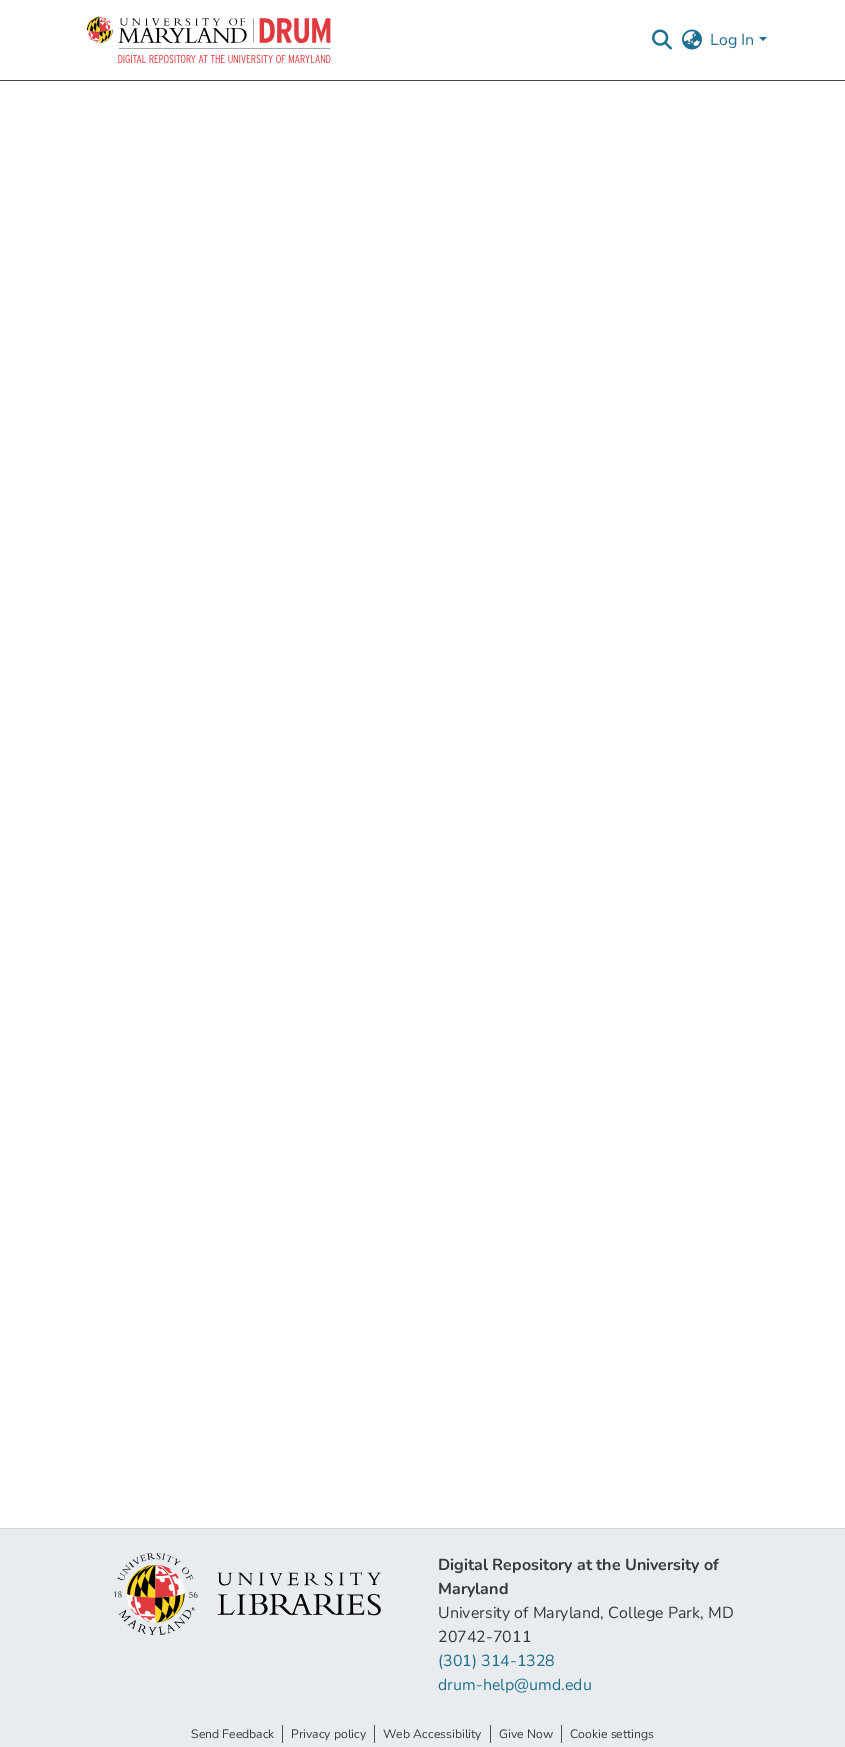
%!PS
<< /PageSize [845 1747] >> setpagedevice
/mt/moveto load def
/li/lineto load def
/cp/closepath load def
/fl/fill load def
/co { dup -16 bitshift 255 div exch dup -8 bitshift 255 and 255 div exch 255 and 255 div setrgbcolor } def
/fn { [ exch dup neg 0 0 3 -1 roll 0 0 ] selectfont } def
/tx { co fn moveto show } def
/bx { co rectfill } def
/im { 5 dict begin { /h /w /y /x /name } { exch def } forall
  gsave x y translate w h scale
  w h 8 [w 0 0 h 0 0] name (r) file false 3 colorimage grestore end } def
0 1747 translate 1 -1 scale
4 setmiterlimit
0 0 845 1747 16#FFFFFF bx
0 80 845 1 16#454545 bx
(media/1.raw) 86 16 245 47 im
(media/2.raw) 652 29 20 21 im
(media/3.raw) 682 29 20 21 im
16#1E6F90 co
759 37 mt 767 37 li 763 41 li cp fl
0 1529 845 218 16#E9ECEF bx
0 1528 845 1 16#CED4DA bx
(media/4.raw) 113 1553 268 82 im
282 1725 1 18 16#495057 bx
374 1725 1 18 16#495057 bx
490 1725 1 18 16#495057 bx
561 1725 1 18 16#495057 bx
(Log In) 710 45 /Nunito-Regular 16 16#1E6F90 tx
(Digital Repository at the University of) 438 1570 /Nunito-Bold 16 16#343A40 tx
(Maryland) 438 1594 /Nunito-Bold 16 16#343A40 tx
(University of Maryland, College Park, MD) 438 1618 /Nunito-Regular 16 16#343A40 tx
(20742-7011) 438 1642 /Nunito-Regular 16 16#343A40 tx
(\(301\) 314-1328) 438 1666 /Nunito-Regular 16 16#1E6F90 tx
(drum-help@umd.edu) 438 1690 /Nunito-Regular 16 16#1E6F90 tx
(Send Feedback) 191 1738 /Nunito-Regular 12.25 16#343A40 tx
(Privacy policy) 291 1738 /Nunito-Regular 12.25 16#343A40 tx
(Web Accessibility) 383 1738 /Nunito-Regular 12.25 16#343A40 tx
(Give Now) 499 1738 /Nunito-Regular 12.25 16#343A40 tx
(Cookie settings) 570 1738 /Nunito-Regular 12.25 16#343A40 tx
showpage
